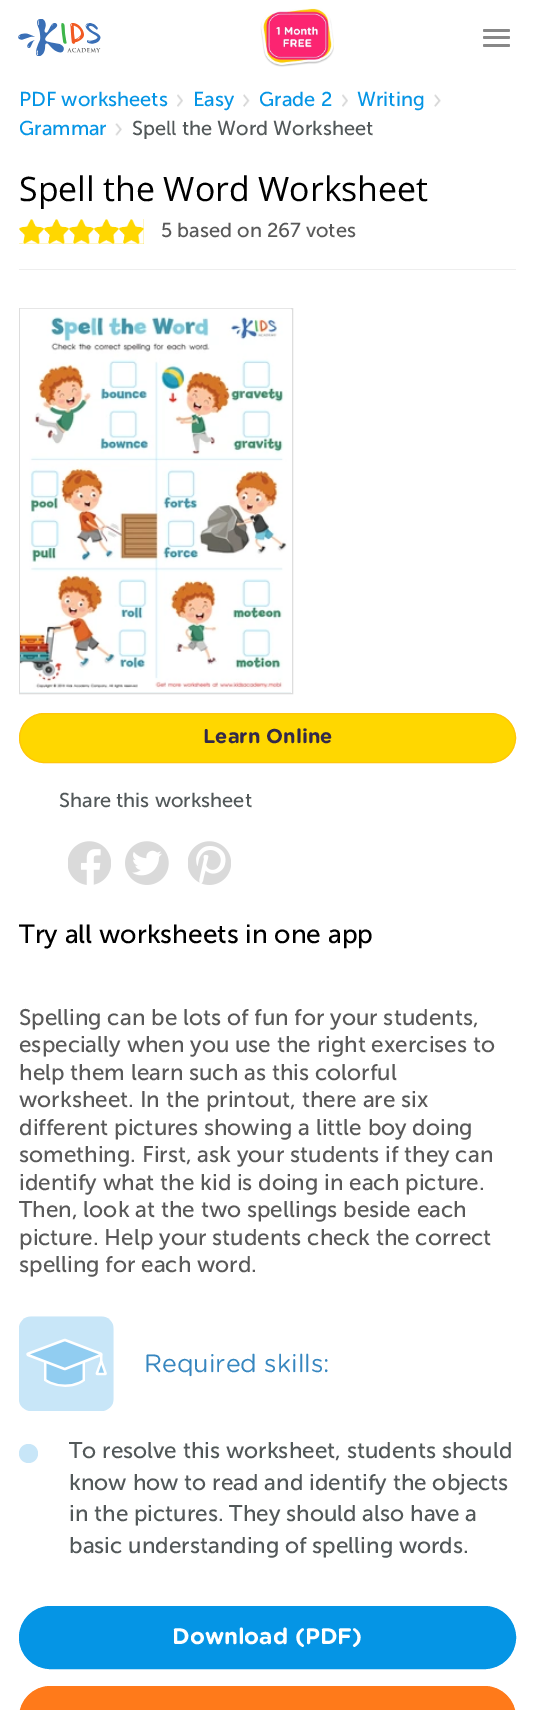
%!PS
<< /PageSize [535 1710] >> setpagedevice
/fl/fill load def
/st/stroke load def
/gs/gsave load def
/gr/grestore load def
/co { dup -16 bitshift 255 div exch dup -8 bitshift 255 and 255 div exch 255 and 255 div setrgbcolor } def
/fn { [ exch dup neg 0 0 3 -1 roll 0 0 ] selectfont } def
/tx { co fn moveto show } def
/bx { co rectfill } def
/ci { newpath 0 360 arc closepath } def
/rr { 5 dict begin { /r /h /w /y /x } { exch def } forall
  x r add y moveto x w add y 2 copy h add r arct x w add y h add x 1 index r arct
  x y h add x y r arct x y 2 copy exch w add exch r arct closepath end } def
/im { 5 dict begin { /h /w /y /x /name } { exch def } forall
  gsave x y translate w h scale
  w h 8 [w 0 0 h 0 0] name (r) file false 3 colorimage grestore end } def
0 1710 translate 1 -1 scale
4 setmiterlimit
0 0 535 1710 16#FFFFFF bx
(media/1.raw) 260 8 74 59 im
(media/2.raw) 18 19 83 37 im
16#888888 co
483 29 27 3 1.5 rr fl
483 36 27 3 1.5 rr fl
483 44 27 3 1.5 rr fl
(media/3.raw) 177 94 6 13 im
(media/4.raw) 243 94 7 13 im
(media/3.raw) 342 94 6 13 im
(media/5.raw) 434 94 7 13 im
(media/6.raw) 115 123 7 13 im
19 219 125 25 16#FFD700 bx
(media/7.raw) 19 219 125 25 im
19 269 497 1 16#EEEEEE bx
16#DDDDDD co
19.5 308.5 273 385 rectstroke
20 692 271 1 16#DAE9EA bx
(media/8.raw) 20 308 271 385 im
16#FFD700 co
19.5 713.5 496 49 24.5 rr gs fl gr
16#FFC60A co
st
(media/9.raw) 68 841 43 44 im
(media/10.raw) 125 841 44 44 im
(media/11.raw) 188 841 43 44 im
(media/12.raw) 19 1316 95 95 im
16#C8E6F8 co
28.5 1453.5 9.5 ci fl
16#0595E5 co
19.5 1606.5 496 62 31 rr gs fl gr
st
16#FF7A1A co
19.5 1686.5 496 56 31 rr gs fl gr
st
(PDF worksheets) 19 106 /MuseoSans-Regular 20 16#0595E5 tx
(Easy) 193 106 /MuseoSans-Regular 20 16#0595E5 tx
(Grade 2) 259 106 /MuseoSans-Regular 20 16#0595E5 tx
(Writing) 357 106 /MuseoSans-Regular 20 16#0595E5 tx
(Grammar) 19 135 /MuseoSans-Regular 20 16#0595E5 tx
(Spell the Word Worksheet) 132 135 /MuseoSans-Regular 20 16#525859 tx
(Spell the Word Worksheet) 19 201 /OpenSans-Regular 33.75 16#000000 tx
(5 based on 267 votes) 161 237 /MuseoSans-Regular 20 16#595959 tx
(Learn Online) 203 743 /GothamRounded-Bold 20 16#322949 tx
(Share this worksheet) 59 807 /MuseoSans-Regular 20 16#525859 tx
(Try all worksheets in one app) 19 943 /MuseoSans-Regular 26.25 16#000000 tx
(Spelling can be lots of fun for your students,) 19 1025 /MuseoSans-Regular 22.5 16#595959 tx
(especially when you use the right exercises to) 19 1052 /MuseoSans-Regular 22.5 16#595959 tx
(help them learn such as this colorful) 19 1080 /MuseoSans-Regular 22.5 16#595959 tx
(worksheet. In the printout, there are six) 19 1107 /MuseoSans-Regular 22.5 16#595959 tx
(different pictures showing a little boy doing) 19 1135 /MuseoSans-Regular 22.5 16#595959 tx
(something. First, ask your students if they can) 19 1162 /MuseoSans-Regular 22.5 16#595959 tx
(identify what the kid is doing in each picture.) 19 1190 /MuseoSans-Regular 22.5 16#595959 tx
(Then, look at the two spellings beside each) 19 1217 /MuseoSans-Regular 22.5 16#595959 tx
(picture. Help your students check the correct) 19 1245 /MuseoSans-Regular 22.5 16#595959 tx
(spelling for each word.) 19 1272 /MuseoSans-Regular 22.5 16#595959 tx
(Required skills:) 144 1372 /GothamRounded-Regular 25 16#3686BF tx
(To resolve this worksheet, students should) 69 1458 /MuseoSans-Regular 22.5 16#525859 tx
(know how to read and identify the objects) 69 1490 /MuseoSans-Regular 22.5 16#525859 tx
(in the pictures. They should also have a) 69 1521 /MuseoSans-Regular 22.5 16#525859 tx
(basic understanding of spelling words.) 69 1553 /MuseoSans-Regular 22.5 16#525859 tx
(Download \(PDF\)) 172 1644 /GothamRounded-Bold 22.5 16#FFFFFF tx
showpage
